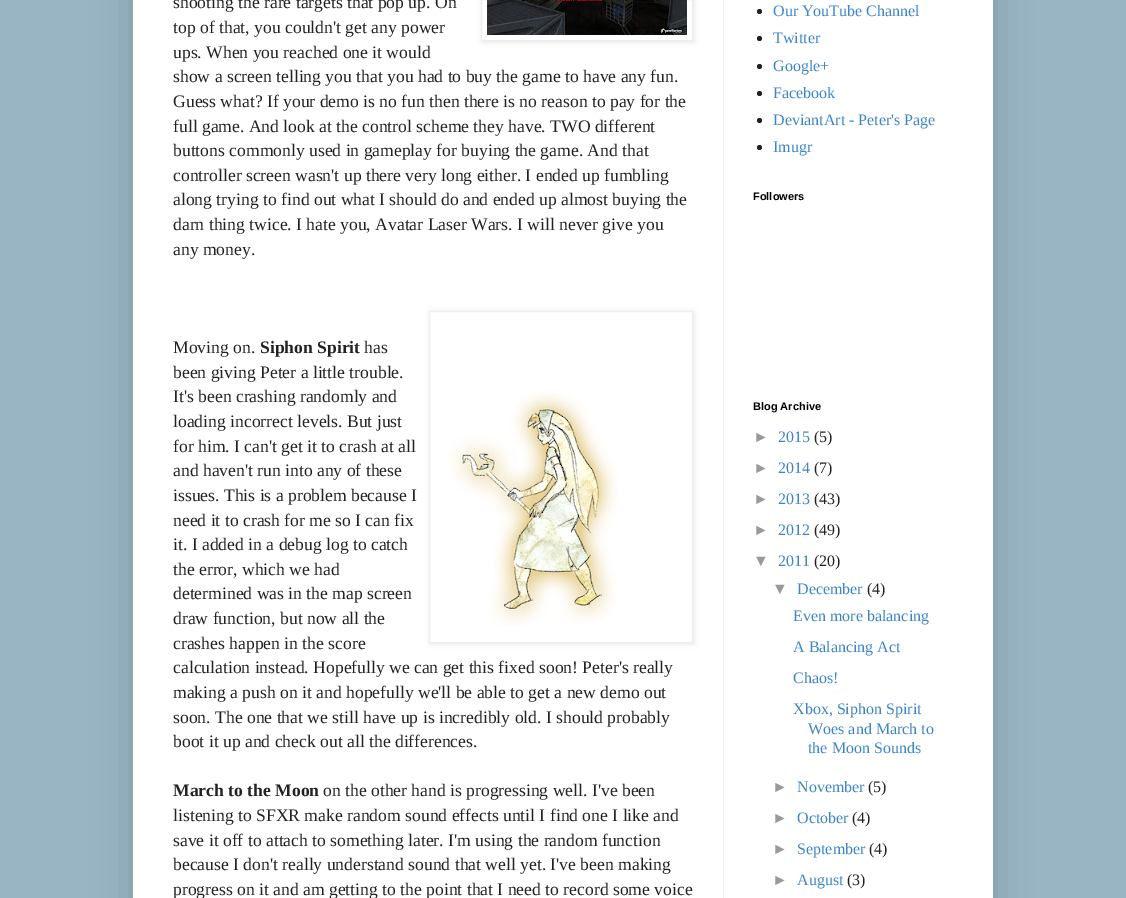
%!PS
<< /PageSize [1126 898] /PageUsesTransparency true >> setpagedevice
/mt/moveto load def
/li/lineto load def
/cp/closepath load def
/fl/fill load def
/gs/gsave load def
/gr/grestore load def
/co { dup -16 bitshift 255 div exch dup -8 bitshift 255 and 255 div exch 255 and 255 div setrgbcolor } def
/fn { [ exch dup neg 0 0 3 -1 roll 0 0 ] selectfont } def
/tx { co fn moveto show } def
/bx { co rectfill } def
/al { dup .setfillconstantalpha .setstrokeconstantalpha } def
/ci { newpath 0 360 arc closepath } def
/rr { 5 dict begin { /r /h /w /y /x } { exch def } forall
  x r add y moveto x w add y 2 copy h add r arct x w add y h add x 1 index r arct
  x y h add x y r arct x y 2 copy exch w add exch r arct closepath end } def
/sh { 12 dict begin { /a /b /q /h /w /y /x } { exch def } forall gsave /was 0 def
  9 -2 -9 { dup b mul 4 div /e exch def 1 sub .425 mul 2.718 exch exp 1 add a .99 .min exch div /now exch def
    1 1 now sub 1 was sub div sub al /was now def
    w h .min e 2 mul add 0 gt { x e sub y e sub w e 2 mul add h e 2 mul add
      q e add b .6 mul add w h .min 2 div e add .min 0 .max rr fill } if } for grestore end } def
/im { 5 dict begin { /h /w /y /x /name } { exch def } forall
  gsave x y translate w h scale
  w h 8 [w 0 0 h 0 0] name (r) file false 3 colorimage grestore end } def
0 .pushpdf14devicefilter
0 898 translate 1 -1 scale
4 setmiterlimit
0 0 1126 898 16#99B4C3 bx
16#000000 co
133 -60 860 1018 0 20 .15 sh
133 0 860 898 16#FFFFFF bx
gs
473 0 mt 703 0 li 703 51 li 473 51 li cp 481 -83 mt 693 -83 li 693 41 li 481 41 li cp eoclip newpath
16#000000 co
482 -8 212 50 0 2.5 .1 sh
gr
16#EEEEEE co
481.5 -.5 211 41 rectstroke
(media/1.raw) 487 0 200 35 im
gs
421 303 mt 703 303 li 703 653 li 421 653 li cp 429 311 mt 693 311 li 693 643 li 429 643 li cp eoclip newpath
16#000000 co
430 312 264 332 0 2.5 .1 sh
gr
429.5 311.5 263 331 rectstroke
(media/2.raw) 448 391 171 236 im
16#222222 co
759.5 11.5 2.5 ci fl
759.5 38.5 2.5 ci fl
759.5 66.5 2.5 ci fl
759.5 93.5 2.5 ci fl
759.5 120.5 2.5 ci fl
759.5 147.5 2.5 ci fl
723 0 1 898 16#EEEEEE bx
(shooting the rare targets that pop up. On) 173 8 /LiberationSerif-Regular 17.6 16#222222 tx
(top of that, you couldn't get any power) 173 33 /LiberationSerif-Regular 17.6 16#222222 tx
(ups. When you reached one it would) 173 58 /LiberationSerif-Regular 17.6 16#222222 tx
(show a screen telling you that you had to buy the game to have any fun.) 173 82 /LiberationSerif-Regular 17.6 16#222222 tx
(Guess what? If your demo is no fun then there is no reason to pay for the) 173 107 /LiberationSerif-Regular 17.6 16#222222 tx
(full game. And look at the control scheme they have. TWO different) 173 132 /LiberationSerif-Regular 17.6 16#222222 tx
(buttons commonly used in gameplay for buying the game. And that) 173 156 /LiberationSerif-Regular 17.6 16#222222 tx
(controller screen wasn't up there very long either. I ended up fumbling) 173 181 /LiberationSerif-Regular 17.6 16#222222 tx
(along trying to find out what I should do and ended up almost buying the) 173 205 /LiberationSerif-Regular 17.6 16#222222 tx
(darn thing twice. I hate you, Avatar Laser Wars. I will never give you) 173 230 /LiberationSerif-Regular 17.6 16#222222 tx
(any money.) 173 255 /LiberationSerif-Regular 17.6 16#222222 tx
(Moving on.) 173 353 /LiberationSerif-Regular 17.6 16#222222 tx
(Siphon Spirit) 260 353 /LiberationSerif-Bold 17.6 16#222222 tx
(has) 364 353 /LiberationSerif-Regular 17.6 16#222222 tx
(been giving Peter a little trouble.) 173 378 /LiberationSerif-Regular 17.6 16#222222 tx
(It's been crashing randomly and) 173 402 /LiberationSerif-Regular 17.6 16#222222 tx
(loading incorrect levels. But just) 173 427 /LiberationSerif-Regular 17.6 16#222222 tx
(for him. I can't get it to crash at all) 173 452 /LiberationSerif-Regular 17.6 16#222222 tx
(and haven't run into any of these) 173 476 /LiberationSerif-Regular 17.6 16#222222 tx
(issues. This is a problem because I) 173 501 /LiberationSerif-Regular 17.6 16#222222 tx
(need it to crash for me so I can fix) 173 526 /LiberationSerif-Regular 17.6 16#222222 tx
(it. I added in a debug log to catch) 173 550 /LiberationSerif-Regular 17.6 16#222222 tx
(the error, which we had) 173 575 /LiberationSerif-Regular 17.6 16#222222 tx
(determined was in the map screen) 173 599 /LiberationSerif-Regular 17.6 16#222222 tx
(draw function, but now all the) 173 624 /LiberationSerif-Regular 17.6 16#222222 tx
(crashes happen in the score) 173 649 /LiberationSerif-Regular 17.6 16#222222 tx
(calculation instead. Hopefully we can get this fixed soon! Peter's really) 173 673 /LiberationSerif-Regular 17.6 16#222222 tx
(making a push on it and hopefully we'll be able to get a new demo out) 173 698 /LiberationSerif-Regular 17.6 16#222222 tx
(soon. The one that we still have up is incredibly old. I should probably) 173 723 /LiberationSerif-Regular 17.6 16#222222 tx
(boot it up and check out all the differences.) 173 747 /LiberationSerif-Regular 17.6 16#222222 tx
(March to the Moon) 173 796 /LiberationSerif-Bold 17.6 16#222222 tx
(on the other hand is progressing well. I've been) 323 796 /LiberationSerif-Regular 17.6 16#222222 tx
(listening to SFXR make random sound effects until I find one I like and) 173 821 /LiberationSerif-Regular 17.6 16#222222 tx
(save it off to attach to something later. I'm using the random function) 173 846 /LiberationSerif-Regular 17.6 16#222222 tx
(because I don't really understand sound that well yet. I've been making) 173 870 /LiberationSerif-Regular 17.6 16#222222 tx
(progress on it and am getting to the point that I need to record some voice) 173 895 /LiberationSerif-Regular 17.6 16#222222 tx
(Our YouTube Channel) 773 16 /LiberationSerif-Regular 16 16#3D85C6 tx
(Twitter) 773 43 /LiberationSerif-Regular 16 16#3D85C6 tx
(Google+) 773 71 /LiberationSerif-Regular 16 16#3D85C6 tx
(Facebook) 773 98 /LiberationSerif-Regular 16 16#3D85C6 tx
(DeviantArt - Peter's Page) 773 125 /LiberationSerif-Regular 16 16#3D85C6 tx
(Imugr) 773 152 /LiberationSerif-Regular 16 16#3D85C6 tx
(Followers) 753 200 /LiberationSans-Bold 11 16#000000 tx
(Blog Archive) 753 410 /LiberationSans-Bold 11 16#000000 tx
(►) 753 442 /LiberationSans-Regular 16 16#999999 tx
(2015) 778 442 /LiberationSerif-Regular 16 16#3D85C6 tx
(\(5\)) 814 442 /LiberationSerif-Regular 16 16#222222 tx
(►) 753 473 /LiberationSans-Regular 16 16#999999 tx
(2014) 778 473 /LiberationSerif-Regular 16 16#3D85C6 tx
(\(7\)) 814 473 /LiberationSerif-Regular 16 16#222222 tx
(►) 753 504 /LiberationSans-Regular 16 16#999999 tx
(2013) 778 504 /LiberationSerif-Regular 16 16#3D85C6 tx
(\(43\)) 814 504 /LiberationSerif-Regular 16 16#222222 tx
(►) 753 535 /LiberationSans-Regular 16 16#999999 tx
(2012) 778 535 /LiberationSerif-Regular 16 16#3D85C6 tx
(\(49\)) 814 535 /LiberationSerif-Regular 16 16#222222 tx
(▼) 753 566 /LiberationSans-Regular 16 16#999999 tx
(2011) 778 566 /LiberationSerif-Regular 16 16#3D85C6 tx
(\(20\)) 814 566 /LiberationSerif-Regular 16 16#222222 tx
(▼) 772 594 /LiberationSans-Regular 16 16#999999 tx
(December) 797 594 /LiberationSerif-Regular 16 16#3D85C6 tx
(\(4\)) 867 594 /LiberationSerif-Regular 16 16#222222 tx
(Even more balancing) 793 621 /LiberationSerif-Regular 16 16#3D85C6 tx
(A Balancing Act) 793 652 /LiberationSerif-Regular 16 16#3D85C6 tx
(Chaos!) 793 683 /LiberationSerif-Regular 16 16#3D85C6 tx
(Xbox, Siphon Spirit) 793 714 /LiberationSerif-Regular 16 16#3D85C6 tx
(Woes and March to) 808 734 /LiberationSerif-Regular 16 16#3D85C6 tx
(the Moon Sounds) 808 753 /LiberationSerif-Regular 16 16#3D85C6 tx
(►) 772 792 /LiberationSans-Regular 16 16#999999 tx
(November) 797 792 /LiberationSerif-Regular 16 16#3D85C6 tx
(\(5\)) 868 792 /LiberationSerif-Regular 16 16#222222 tx
(►) 772 823 /LiberationSans-Regular 16 16#999999 tx
(October) 797 823 /LiberationSerif-Regular 16 16#3D85C6 tx
(\(4\)) 852 823 /LiberationSerif-Regular 16 16#222222 tx
(►) 772 854 /LiberationSans-Regular 16 16#999999 tx
(September) 797 854 /LiberationSerif-Regular 16 16#3D85C6 tx
(\(4\)) 869 854 /LiberationSerif-Regular 16 16#222222 tx
(►) 772 885 /LiberationSans-Regular 16 16#999999 tx
(August) 797 885 /LiberationSerif-Regular 16 16#3D85C6 tx
(\(3\)) 847 885 /LiberationSerif-Regular 16 16#222222 tx
.poppdf14devicefilter showpage
